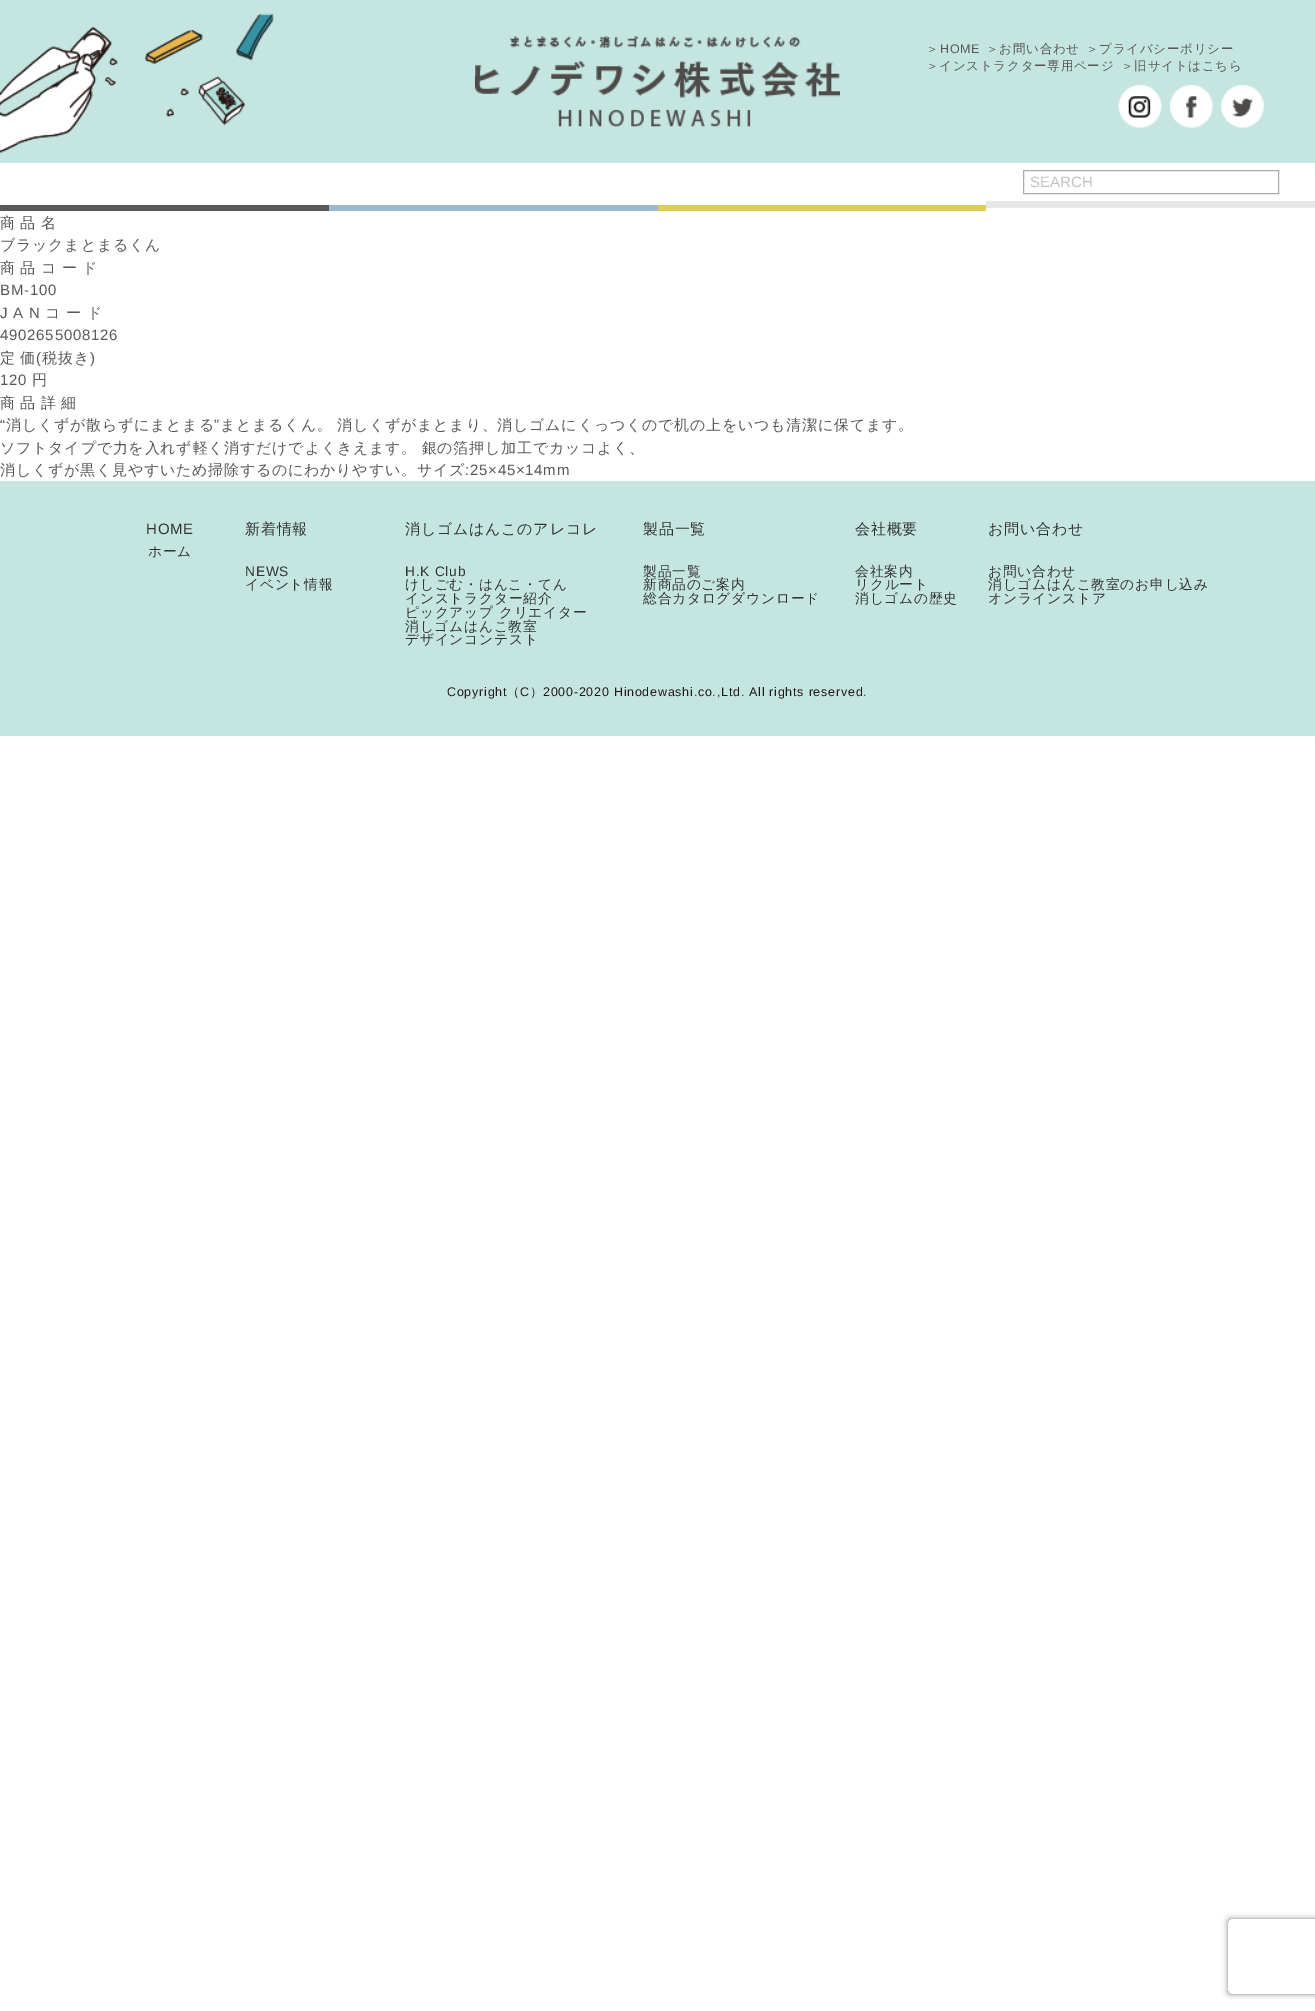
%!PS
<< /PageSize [1315 2011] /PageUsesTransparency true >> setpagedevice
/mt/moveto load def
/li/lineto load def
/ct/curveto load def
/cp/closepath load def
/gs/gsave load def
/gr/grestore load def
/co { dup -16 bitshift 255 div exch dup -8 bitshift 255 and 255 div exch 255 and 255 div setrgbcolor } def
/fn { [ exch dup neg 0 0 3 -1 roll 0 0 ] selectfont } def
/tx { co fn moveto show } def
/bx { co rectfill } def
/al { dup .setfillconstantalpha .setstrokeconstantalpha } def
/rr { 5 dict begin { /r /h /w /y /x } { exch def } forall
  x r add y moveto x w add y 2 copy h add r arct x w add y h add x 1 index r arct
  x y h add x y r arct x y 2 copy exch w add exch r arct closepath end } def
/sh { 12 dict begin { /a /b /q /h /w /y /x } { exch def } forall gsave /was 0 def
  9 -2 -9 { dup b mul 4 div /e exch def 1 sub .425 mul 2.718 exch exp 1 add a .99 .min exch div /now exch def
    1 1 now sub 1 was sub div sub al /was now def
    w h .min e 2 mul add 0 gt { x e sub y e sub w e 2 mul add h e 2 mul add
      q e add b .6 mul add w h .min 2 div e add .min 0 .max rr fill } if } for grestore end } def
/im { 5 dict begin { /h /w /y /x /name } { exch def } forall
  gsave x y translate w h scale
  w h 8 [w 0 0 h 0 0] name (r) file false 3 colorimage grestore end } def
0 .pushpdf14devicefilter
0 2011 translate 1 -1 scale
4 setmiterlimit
0 0 1315 2011 16#FFFFFF bx
0 0 1315 163 16#C4E5E0 bx
(media/1.raw) 0 13 274 140 im
(media/2.raw) 475 36 365 91 im
(media/3.raw) 1118 85 44 43 im
(media/4.raw) 1170 85 43 43 im
(media/5.raw) 1221 85 43 43 im
986 201 329 7 16#E6E7E7 bx
16#AAABAB co
1023.5 170.5 255 23 rectstroke
0 205 329 6 16#595757 bx
329 205 329 6 16#9CB8D1 bx
658 205 328 6 16#DACF52 bx
0 481 1315 255 16#C4E5E0 bx
gs
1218 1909 mt 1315 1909 li 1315 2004 li 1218 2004 li cp 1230.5 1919 mt 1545.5 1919 li 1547 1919 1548 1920 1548 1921.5 ct 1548 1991.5 li 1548 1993 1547 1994 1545.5 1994 ct 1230.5 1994 li 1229 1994 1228 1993 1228 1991.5 ct 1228 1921.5 li 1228 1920 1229 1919 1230.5 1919 ct cp eoclip newpath
16#808080 co
1228 1919 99 75 2.5 3 1 sh
gr
/WenQuanYiZenHei-Medium 12.5 fn
16#595757 co
926 53 mt .75 0 (＞) ashow
/LiberationSans-Regular 12.5 fn
940 53 mt .75 0 (HOME) ashow
/WenQuanYiZenHei-Medium 12.5 fn
986 53 mt .75 0 (＞お問い合わせ) ashow
1086 53 mt .75 0 (＞プライバシーポリシー) ashow
926 70 mt .75 0 (＞インストラクター専用ページ) ashow
1121 70 mt .75 0 (＞旧サイトはこちら) ashow
(SEARCH) 1030 187 /LiberationSans-Regular 15 16#C1C1C1 tx
/WenQuanYiZenHei-Medium 15 fn
16#595757 co
0 228 mt -.5 0 32 .75 0 (商 品 名) awidthshow
0 250 mt .75 0 (ブラックまとまるくん) ashow
0 273 mt -.5 0 32 .75 0 (商 品 コ ー ド) awidthshow
/LiberationSans-Regular 15 fn
0 295 mt .75 0 (BM-100) ashow
0 318 mt .75 0 (J A N) ashow
/WenQuanYiZenHei-Medium 15 fn
45 318 mt .75 0 (コ) ashow
66 318 mt .75 0 (ー) ashow
87 318 mt .75 0 (ド) ashow
/LiberationSans-Regular 15 fn
0 340 mt .75 0 (4902655008126) ashow
/WenQuanYiZenHei-Medium 15 fn
0 363 mt -.5 0 32 .75 0 (定 価) awidthshow
/LiberationSans-Regular 15 fn
36 363 mt .75 0 (\() ashow
/WenQuanYiZenHei-Medium 15 fn
42 363 mt .75 0 (税抜き) ashow
/LiberationSans-Regular 15 fn
90 363 mt .75 0 (\)) ashow
0 385 mt .75 0 (120) ashow
/WenQuanYiZenHei-Medium 15 fn
32 385 mt .75 0 (円) ashow
0 408 mt -.5 0 32 .75 0 (商 品 詳 細) awidthshow
/LiberationSans-Regular 15 fn
0 430 mt .75 0 (“) ashow
/WenQuanYiZenHei-Medium 15 fn
6 430 mt .75 0 (消しくずが散らずにまとまる) ashow
/LiberationSans-Regular 15 fn
214 430 mt .75 0 (”) ashow
/WenQuanYiZenHei-Medium 15 fn
220 430 mt -.5 0 32 .75 0 (まとまるくん。 消しくずがまとまり、消しゴムにくっつくので机の上をいつも清潔に保てます。) awidthshow
0 453 mt -.5 0 32 .75 0 (ソフトタイプで力を入れず軽く消すだけでよくきえます。 銀の箔押し加工でカッコよく、) awidthshow
0 475 mt .75 0 (消しくずが黒く見やすいため掃除するのにわかりやすい。サイズ) ashow
/LiberationSans-Regular 15 fn
465 475 mt .75 0 (:25×45×14mm) ashow
16#333333 co
146 534 mt .75 0 (HOME) ashow
/WenQuanYiZenHei-Medium 13.75 fn
148 556 mt .75 0 (ホーム) ashow
/WenQuanYiZenHei-Medium 15 fn
245 534 mt .75 0 (新着情報) ashow
/LiberationSans-Regular 13.75 fn
245 576 mt .75 0 (NEWS) ashow
/WenQuanYiZenHei-Medium 13.75 fn
245 589 mt .75 0 (イベント情報) ashow
/WenQuanYiZenHei-Medium 15 fn
405 534 mt .75 0 (消しゴムはんこのアレコレ) ashow
/LiberationSans-Regular 13.75 fn
405 576 mt .75 0 (H.K Club) ashow
/WenQuanYiZenHei-Medium 13.75 fn
405 589 mt .75 0 (けしごむ・はんこ・てん) ashow
405 603 mt .75 0 (インストラクター紹介) ashow
405 617 mt .75 0 (ピックアップ クリエイター) ashow
405 631 mt .75 0 (消しゴムはんこ教室) ashow
405 644 mt .75 0 (デザインコンテスト) ashow
/WenQuanYiZenHei-Medium 15 fn
643 534 mt .75 0 (製品一覧) ashow
/WenQuanYiZenHei-Medium 13.75 fn
643 576 mt .75 0 (製品一覧) ashow
643 589 mt .75 0 (新商品のご案内) ashow
643 603 mt .75 0 (総合カタログダウンロード) ashow
/WenQuanYiZenHei-Medium 15 fn
855 534 mt .75 0 (会社概要) ashow
/WenQuanYiZenHei-Medium 13.75 fn
855 576 mt .75 0 (会社案内) ashow
855 589 mt .75 0 (リクルート) ashow
855 603 mt .75 0 (消しゴムの歴史) ashow
/WenQuanYiZenHei-Medium 15 fn
988 534 mt .75 0 (お問い合わせ) ashow
/WenQuanYiZenHei-Medium 13.75 fn
988 576 mt .75 0 (お問い合わせ) ashow
988 589 mt .75 0 (消しゴムはんこ教室のお申し込み) ashow
988 603 mt .75 0 (オンラインストア) ashow
/LiberationSans-Regular 12.5 fn
16#231815 co
447 696 mt .75 0 (Copyright) ashow
/WenQuanYiZenHei-Medium 12.5 fn
507 696 mt .75 0 (（) ashow
/LiberationSans-Regular 12.5 fn
520 696 mt .75 0 (C) ashow
/WenQuanYiZenHei-Medium 12.5 fn
530 696 mt .75 0 (）) ashow
/LiberationSans-Regular 12.5 fn
543 696 mt .75 0 (2000-2020 Hinodewashi.co.,Ltd. All rights reserved.) ashow
.poppdf14devicefilter showpage
